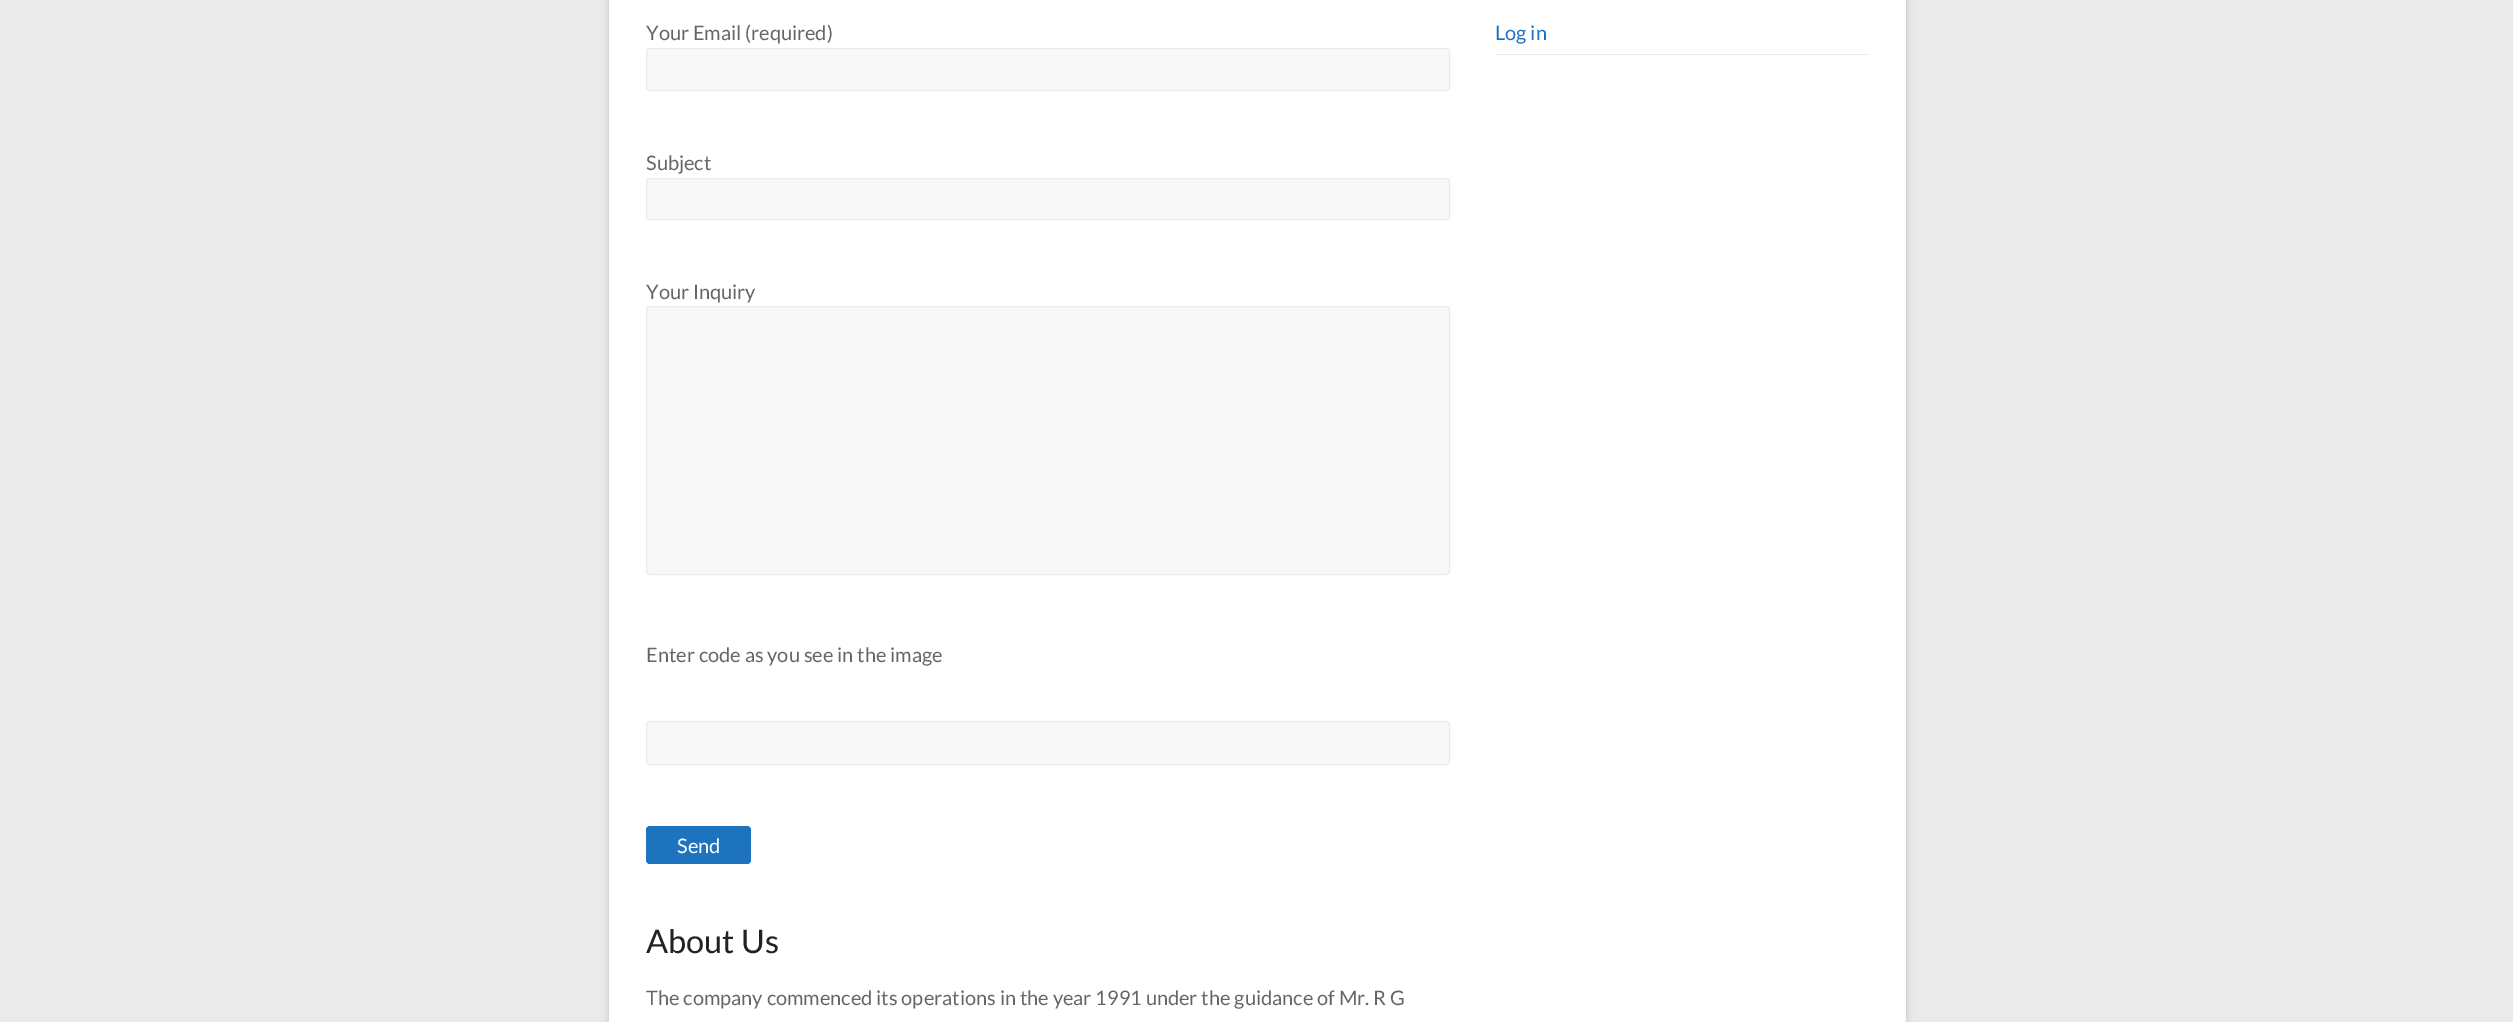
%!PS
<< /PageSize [2513 1022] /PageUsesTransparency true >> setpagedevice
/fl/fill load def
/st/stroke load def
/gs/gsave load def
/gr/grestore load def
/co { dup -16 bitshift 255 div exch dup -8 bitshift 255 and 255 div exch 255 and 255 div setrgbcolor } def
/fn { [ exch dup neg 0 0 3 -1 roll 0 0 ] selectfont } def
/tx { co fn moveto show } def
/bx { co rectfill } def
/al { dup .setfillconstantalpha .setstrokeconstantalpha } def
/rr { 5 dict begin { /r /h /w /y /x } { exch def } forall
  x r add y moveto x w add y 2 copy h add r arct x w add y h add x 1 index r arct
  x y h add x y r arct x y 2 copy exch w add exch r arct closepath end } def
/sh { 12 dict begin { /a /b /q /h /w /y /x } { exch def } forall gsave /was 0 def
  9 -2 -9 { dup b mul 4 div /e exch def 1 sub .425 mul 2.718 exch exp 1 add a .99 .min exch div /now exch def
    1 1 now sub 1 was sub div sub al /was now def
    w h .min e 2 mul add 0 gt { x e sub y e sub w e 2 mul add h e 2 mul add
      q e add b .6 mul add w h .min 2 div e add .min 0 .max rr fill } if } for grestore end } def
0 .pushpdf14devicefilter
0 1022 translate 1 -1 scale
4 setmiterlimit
0 0 2513 1022 16#EAEAEA bx
16#646464 co
609 -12 1297 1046 0 4 .3 sh
609 0 1297 1022 16#FFFFFF bx
16#F8F8F8 co
646.5 48.5 803 42 3.5 rr gs fl gr
16#EAEAEA co
st
16#F8F8F8 co
646.5 178.5 803 41 3.5 rr gs fl gr
16#EAEAEA co
st
16#F8F8F8 co
646.5 306.5 803 268 3.5 rr gs fl gr
16#EAEAEA co
st
16#F8F8F8 co
646.5 721.5 803 43 3.5 rr gs fl gr
16#EAEAEA co
st
16#1E73BE co
646 826 105 38 4 rr fl
1495 54 374 1 16#EAEAEA bx
(Your Email \(required\)) 646 40 /Lato-Regular 20 16#666666 tx
(Subject) 646 170 /Lato-Regular 20 16#666666 tx
(Your Inquiry) 646 299 /Lato-Regular 20 16#666666 tx
(Enter code as you see in the image) 646 662 /Lato-Regular 20 16#666666 tx
(Send) 677 853 /Lato-Regular 20 16#FFFFFF tx
(About Us) 646 953 /Lato-Regular 32.5 16#222222 tx
(The company commenced its operations in the year 1991 under the guidance of Mr. R G) 646 1005 /Lato-Regular 20 16#666666 tx
(Log in) 1495 40 /Lato-Regular 20 16#1E73BE tx
.poppdf14devicefilter showpage
